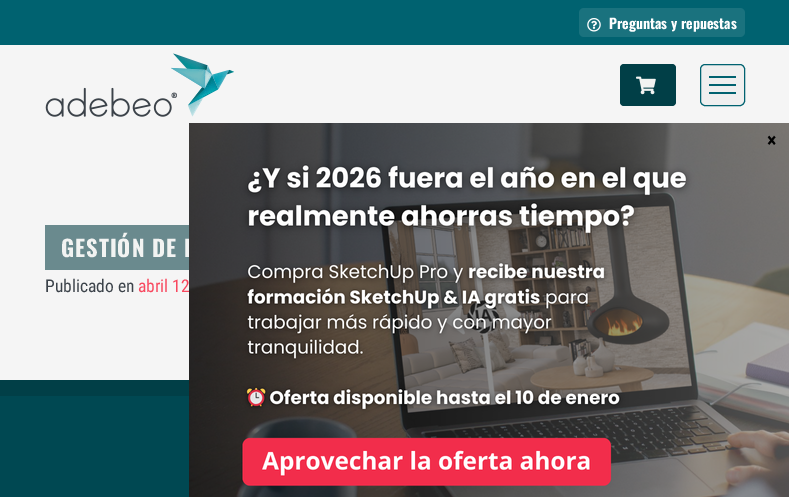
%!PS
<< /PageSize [789 497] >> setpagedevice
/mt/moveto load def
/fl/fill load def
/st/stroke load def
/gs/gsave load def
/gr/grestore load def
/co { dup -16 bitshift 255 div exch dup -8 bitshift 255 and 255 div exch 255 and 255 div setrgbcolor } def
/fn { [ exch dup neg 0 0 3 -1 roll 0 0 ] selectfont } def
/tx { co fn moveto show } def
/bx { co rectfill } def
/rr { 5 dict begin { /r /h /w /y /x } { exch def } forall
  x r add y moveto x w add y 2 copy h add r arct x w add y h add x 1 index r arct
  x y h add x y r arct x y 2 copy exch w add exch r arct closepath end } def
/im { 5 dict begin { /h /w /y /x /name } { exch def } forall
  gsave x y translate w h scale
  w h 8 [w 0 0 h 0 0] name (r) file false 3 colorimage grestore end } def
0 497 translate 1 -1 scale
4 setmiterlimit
0 0 789 497 16#F5F5F5 bx
0 0 789 45 16#006270 bx
16#1A727E co
579 8 166 29 5 rr fl
(media/1.raw) 587 18 14 14 im
(media/2.raw) 45 53 189 64 im
16#013F47 co
620 64 56 42 4 rr fl
(media/3.raw) 636 76 20 19 im
16#EFEFEF co
700.5 64.5 44 41 4.5 rr gs fl gr
16#006270 co
st
709 76 27 2 16#006270 bx
709 84 27 2 16#006270 bx
709 92 27 2 16#006270 bx
45 225 144 45 16#6A8A8E bx
0 396 189 101 16#004852 bx
0 380 189 16 16#013F47 bx
(Preguntas y repuestas) 609 29 /Oswald-Bold 14 16#FFFFFF tx
/Oswald-Bold 22.5 fn
16#F2F3F2 co
61 257 mt 1 0 (GESTIÓN DE L) ashow
(Publicado en) 45 292 /RobotoCondensed-Regular 17.5 16#3C434A tx
(abril 12) 138 292 /RobotoCondensed-Regular 17.5 16#F8475E tx
(media/4.raw) 189 123 600 374 im
(×) 767 147 /RobotoCondensed-Bold 20 16#000000 tx
showpage
